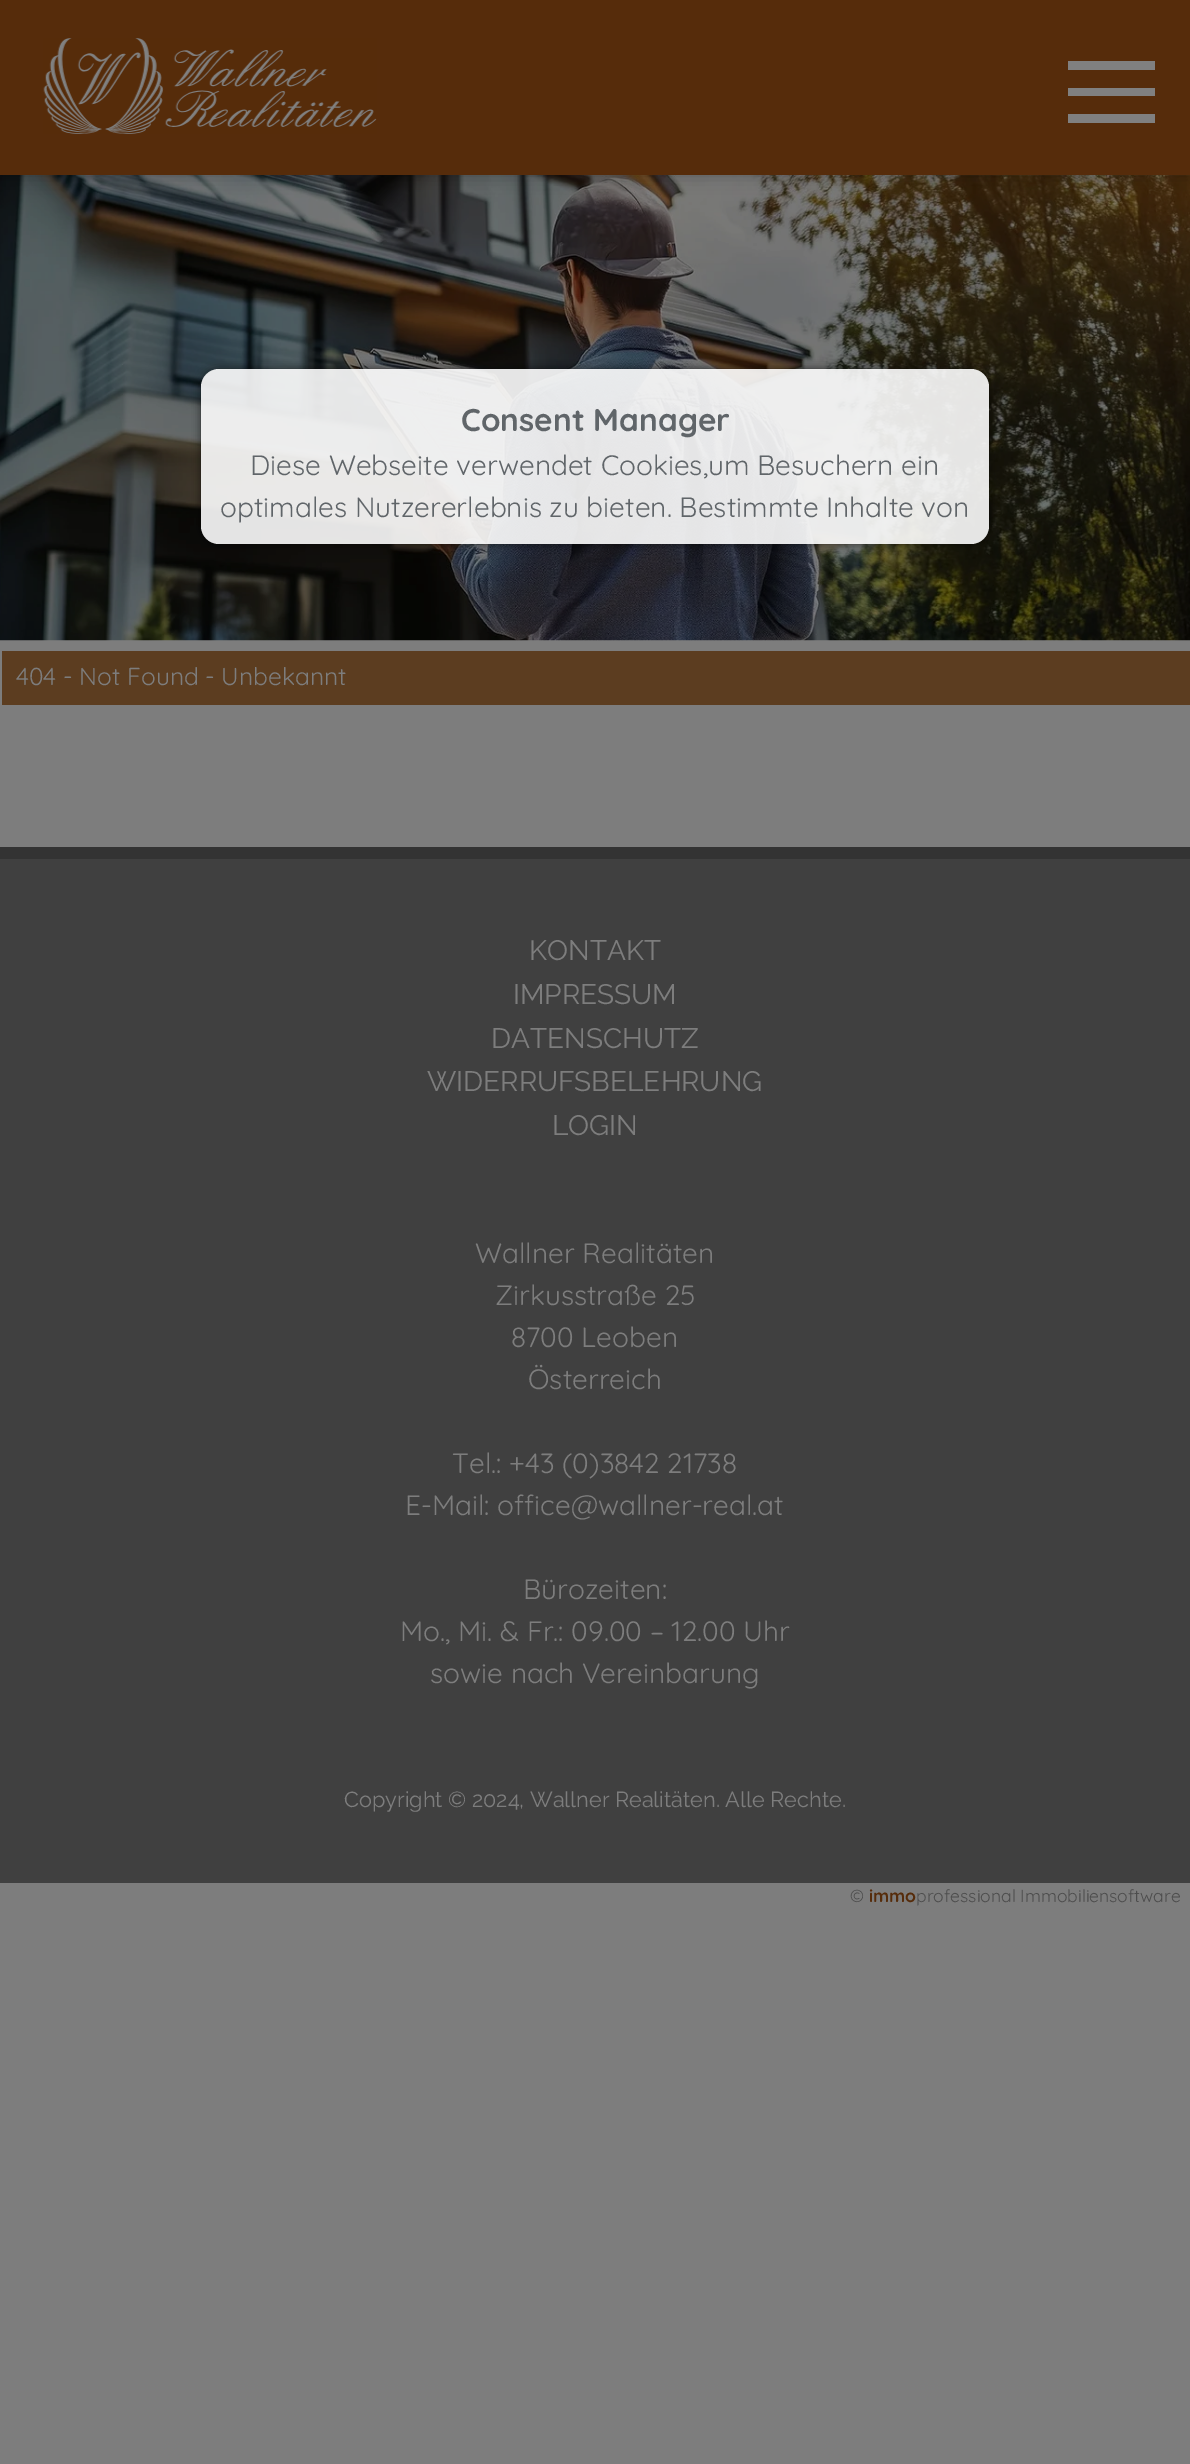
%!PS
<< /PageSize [1190 2464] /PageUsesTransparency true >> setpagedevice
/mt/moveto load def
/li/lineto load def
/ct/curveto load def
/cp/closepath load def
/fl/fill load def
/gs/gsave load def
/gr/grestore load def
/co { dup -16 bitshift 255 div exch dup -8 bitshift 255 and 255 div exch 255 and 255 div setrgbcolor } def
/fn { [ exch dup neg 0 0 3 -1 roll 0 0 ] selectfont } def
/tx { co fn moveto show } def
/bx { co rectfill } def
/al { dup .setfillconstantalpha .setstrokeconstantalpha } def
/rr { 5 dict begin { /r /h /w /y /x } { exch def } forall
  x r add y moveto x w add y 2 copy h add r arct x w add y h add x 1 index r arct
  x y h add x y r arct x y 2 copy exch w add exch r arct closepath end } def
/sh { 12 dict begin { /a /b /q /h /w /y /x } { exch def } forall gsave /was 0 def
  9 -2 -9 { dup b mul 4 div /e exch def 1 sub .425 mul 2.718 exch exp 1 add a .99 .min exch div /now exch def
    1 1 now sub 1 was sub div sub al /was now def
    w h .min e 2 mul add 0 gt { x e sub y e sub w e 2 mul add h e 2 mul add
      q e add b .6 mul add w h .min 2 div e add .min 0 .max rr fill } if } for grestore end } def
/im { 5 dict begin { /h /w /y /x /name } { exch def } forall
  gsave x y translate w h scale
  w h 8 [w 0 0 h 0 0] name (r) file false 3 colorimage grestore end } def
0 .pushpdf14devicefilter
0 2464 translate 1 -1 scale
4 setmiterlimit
0 0 1190 2464 16#7D7D7D bx
0 640 1190 1 16#808080 bx
(media/2.raw) 0 175 1190 466 im
gs
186 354 mt 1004 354 li 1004 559 li 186 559 li cp 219 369 mt 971 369 li 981 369 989 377 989 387 ct 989 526 li 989 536 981 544 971 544 ct 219 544 li 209 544 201 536 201 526 ct 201 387 li 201 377 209 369 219 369 ct cp eoclip newpath
16#000000 co
201 369 788 175 18 4.5 .6 sh
gr
0.9 al
16#FCFCFC co
201 369 788 175 18 rr fl
1 al
16#000000 co
0 0 1190 175 0 9 .25 sh
0 0 1190 175 16#562C0B bx
(media/1.raw) 43 38 334 96 im
1068 88 87 8 16#808080 bx
1068 61 87 9 16#808080 bx
1068 114 87 9 16#808080 bx
2 651 1188 54 16#5C3D20 bx
0 859 1190 1024 16#404040 bx
0 847 1190 12 16#333333 bx
(Consent Manager) 461 431 /Quicksand-Bold 31.5 16#606569 tx
(Diese Webseite verwendet Cookies,um Besuchern ein) 250 475 /Quicksand-Regular 28 16#606569 tx
(optimales Nutzererlebnis zu bieten. Bestimmte Inhalte von) 220 517 /Quicksand-Regular 28 16#606569 tx
(404 - Not Found - Unbekannt) 16 685 /Quicksand-Regular 24.5 16#7D7D7D tx
(KONTAKT) 529 960 /Raleway-Regular 28 16#7D7D7D tx
(IMPRESSUM) 513 1004 /Raleway-Regular 28 16#7D7D7D tx
(DATENSCHUTZ) 491 1048 /Raleway-Regular 28 16#7D7D7D tx
(WIDERRUFSBELEHRUNG) 427 1091 /Raleway-Regular 28 16#7D7D7D tx
(LOGIN) 552 1135 /Raleway-Regular 28 16#7D7D7D tx
(Wallner Realitäten) 475 1263 /Quicksand-Regular 28 16#7D7D7D tx
(Zirkusstraße 25) 495 1305 /Quicksand-Regular 28 16#7D7D7D tx
(8700 Leoben) 511 1347 /Quicksand-Regular 28 16#7D7D7D tx
(Österreich) 528 1389 /Quicksand-Regular 28 16#7D7D7D tx
(Tel.: +43 \(0\)3842 21738) 452 1473 /Quicksand-Regular 28 16#7D7D7D tx
(E-Mail: office@wallner-real.at) 405 1515 /Quicksand-Regular 28 16#7D7D7D tx
(Bürozeiten:) 523 1599 /Quicksand-Regular 28 16#7D7D7D tx
(Mo., Mi. & Fr.: 09.00 – 12.00 Uhr) 400 1641 /Quicksand-Regular 28 16#7D7D7D tx
(sowie nach Vereinbarung) 430 1683 /Quicksand-Regular 28 16#7D7D7D tx
(Copyright © 2024, Wallner Realitäten. Alle Rechte.) 344 1807 /Raleway-Regular 21.7 16#7D7D7D tx
(©) 850 1902 /Quicksand-Regular 17.5 16#4D4D4D tx
(immo) 869 1902 /Quicksand-Bold 17.5 16#562C0B tx
(professional Immobiliensoftware) 916 1902 /Quicksand-Regular 17.5 16#4D4D4D tx
.poppdf14devicefilter showpage
